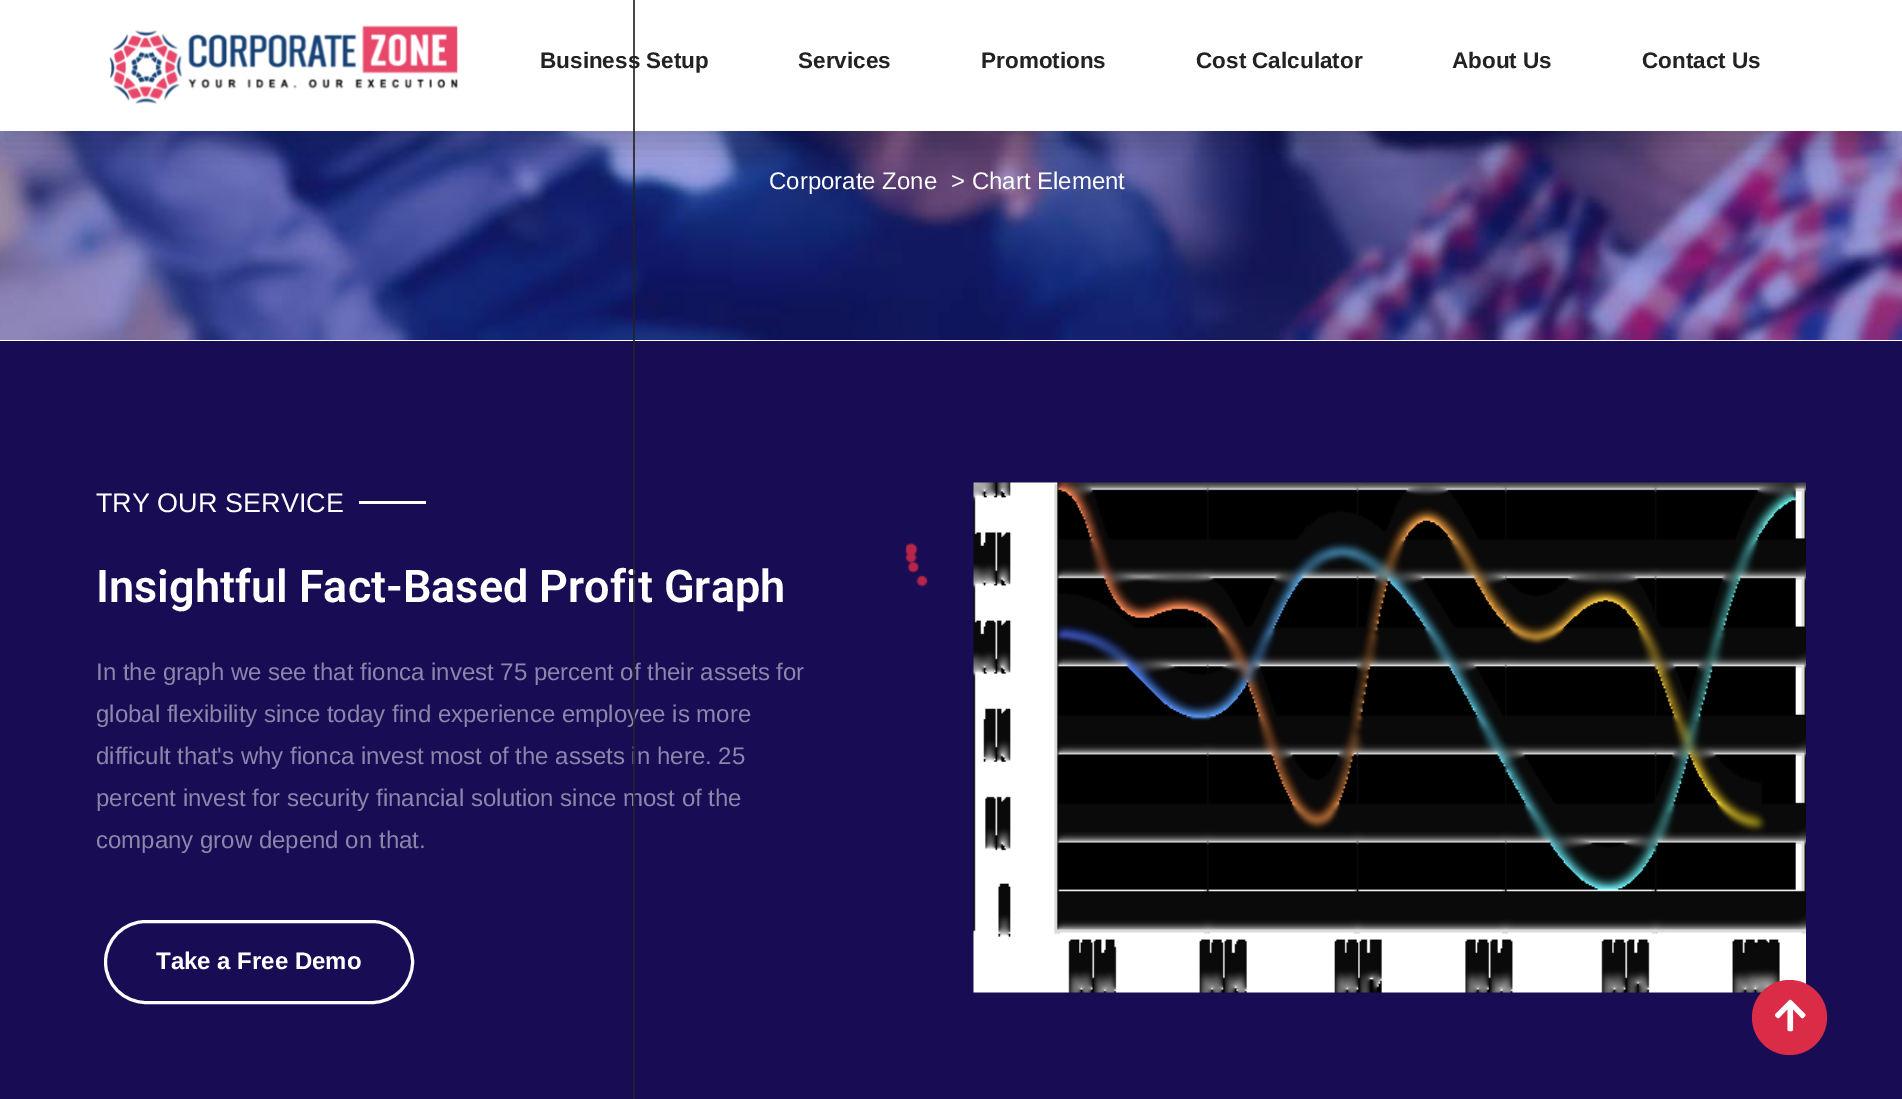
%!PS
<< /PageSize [1902 1099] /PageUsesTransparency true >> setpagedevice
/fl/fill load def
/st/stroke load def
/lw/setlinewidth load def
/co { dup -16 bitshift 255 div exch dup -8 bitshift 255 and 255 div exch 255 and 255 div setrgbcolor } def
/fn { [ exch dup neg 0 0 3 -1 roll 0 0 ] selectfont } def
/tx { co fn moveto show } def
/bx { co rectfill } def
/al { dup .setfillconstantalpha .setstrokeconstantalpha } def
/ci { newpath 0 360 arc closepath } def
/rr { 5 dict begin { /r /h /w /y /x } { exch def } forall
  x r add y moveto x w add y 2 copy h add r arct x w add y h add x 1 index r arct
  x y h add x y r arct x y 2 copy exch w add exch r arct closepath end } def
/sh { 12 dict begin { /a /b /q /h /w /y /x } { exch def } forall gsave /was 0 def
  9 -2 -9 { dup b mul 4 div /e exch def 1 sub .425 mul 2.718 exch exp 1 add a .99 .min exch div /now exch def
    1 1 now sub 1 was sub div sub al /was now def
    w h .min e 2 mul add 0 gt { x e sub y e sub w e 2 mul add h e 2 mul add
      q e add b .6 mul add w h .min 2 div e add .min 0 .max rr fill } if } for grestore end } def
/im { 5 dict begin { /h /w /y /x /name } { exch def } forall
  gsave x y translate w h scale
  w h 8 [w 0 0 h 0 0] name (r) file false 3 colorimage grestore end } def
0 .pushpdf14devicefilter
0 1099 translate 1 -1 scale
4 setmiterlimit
0 0 1902 1099 16#FFFFFF bx
0 341 1902 758 16#180C54 bx
(media/1.raw) 905 542 23 45 im
(media/3.raw) 0 131 1902 209 im
16#000000 co
0 15 1902 131 0 15 .2 sh
0 0 1902 131 16#FFFFFF bx
(media/2.raw) 109 25 349 79 im
359 501 67 3 16#FFFFFF bx
3 lw
105.5 921.5 307 81 40.5 rr st
(media/4.raw) 973 482 833 511 im
16#DA2C46 co
1789.5 1017.5 37.5 ci fl
(media/5.raw) 1774 999 32 33 im
(Business Setup) 540 68 /Arimo-Bold 22.5 16#222222 tx
(Services) 798 68 /Arimo-Bold 22.5 16#222222 tx
(Promotions) 981 68 /Arimo-Bold 22.5 16#222222 tx
(Cost Calculator) 1196 68 /Arimo-Bold 22.5 16#222222 tx
(About Us) 1452 68 /Arimo-Bold 22.5 16#222222 tx
(Contact Us) 1642 68 /Arimo-Bold 22.5 16#222222 tx
(Corporate Zone) 769 189 /Arimo-Regular 24 16#FFFFFF tx
(> Chart Element) 951 189 /Arimo-Regular 24 16#FFFFFF tx
(TRY OUR SERVICE) 96 512 /Arimo-Regular 27 16#FFFFFF tx
(Insightful Fact-Based Profit Graph) 96 602 /Roboto-SemiBold 45 16#FFFFFF tx
(In the graph we see that fionca invest 75 percent of their assets for) 96 680 /Arimo-Regular 24 16#8C86AA tx
(global flexibility since today find experience employee is more) 96 722 /Arimo-Regular 24 16#8C86AA tx
(difficult that's why fionca invest most of the assets in here. 25) 96 764 /Arimo-Regular 24 16#8C86AA tx
(percent invest for security financial solution since most of the) 96 806 /Arimo-Regular 24 16#8C86AA tx
0.83 al
633 0 2 1099 16#222222 bx
1 al
(company grow depend on that.) 96 848 /Arimo-Regular 24 16#8C86AA tx
(Take a Free Demo) 156 969 /Arimo-Bold 24 16#FFFFFF tx
.poppdf14devicefilter showpage
